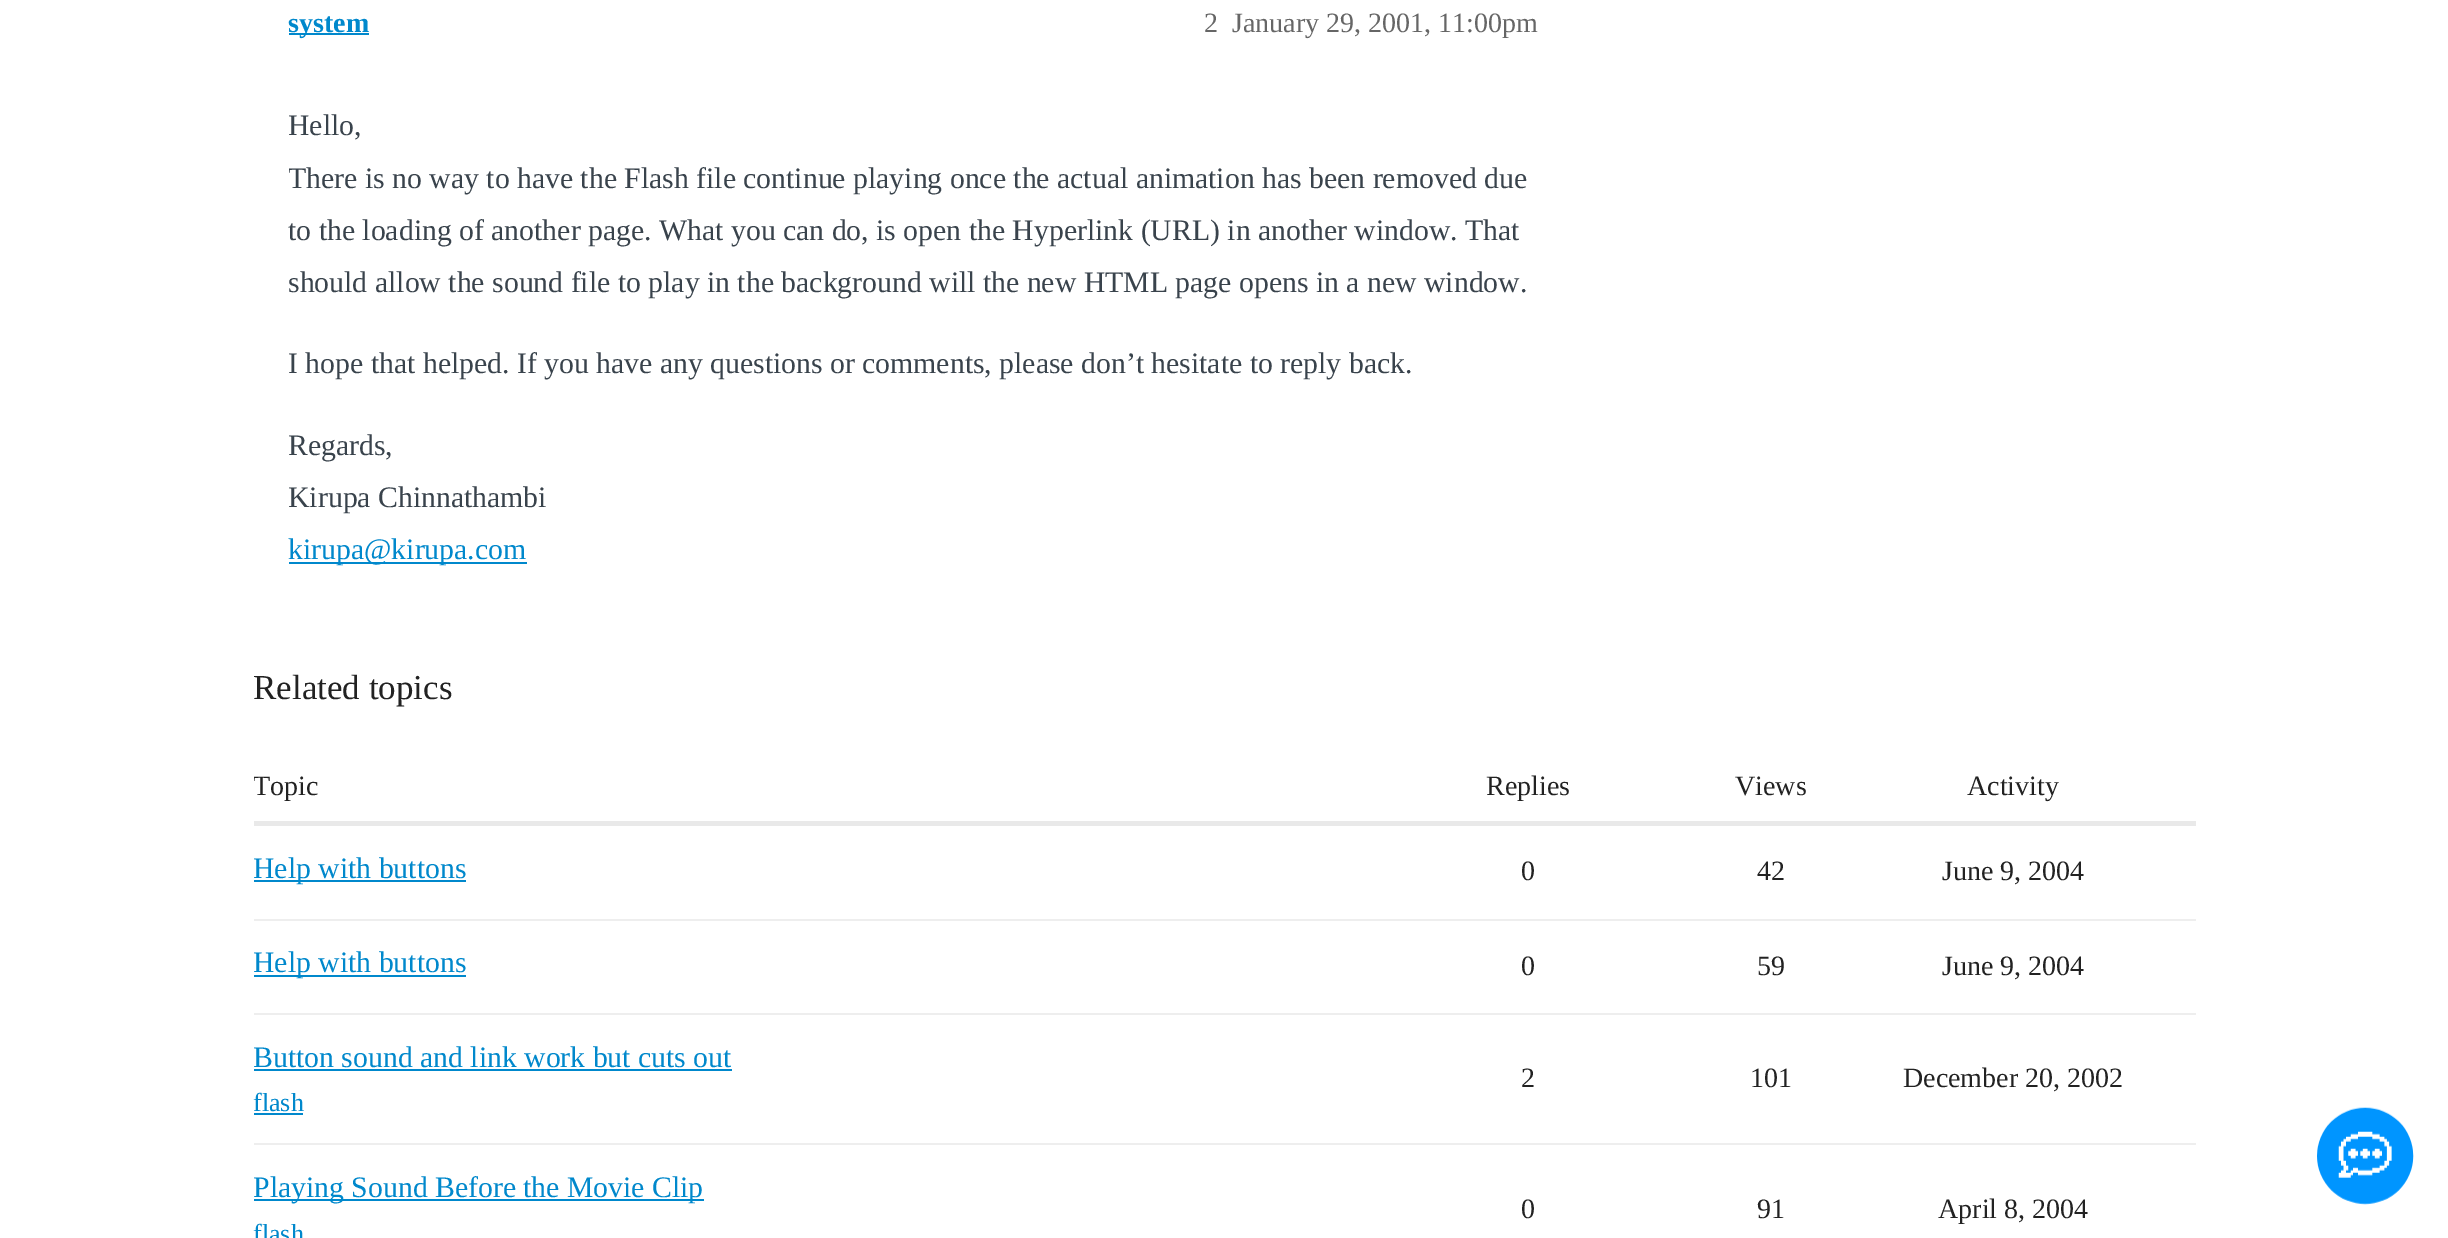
%!PS
<< /PageSize [2448 1238] >> setpagedevice
/gs/gsave load def
/gr/grestore load def
/co { dup -16 bitshift 255 div exch dup -8 bitshift 255 and 255 div exch 255 and 255 div setrgbcolor } def
/fn { [ exch dup neg 0 0 3 -1 roll 0 0 ] selectfont } def
/tx { co fn moveto show } def
/bx { co rectfill } def
/im { 5 dict begin { /h /w /y /x /name } { exch def } forall
  gsave x y translate w h scale
  w h 8 [w 0 0 h 0 0] name (r) file false 3 colorimage grestore end } def
0 1238 translate 1 -1 scale
4 setmiterlimit
0 0 2448 1238 16#FFFFFF bx
289 33 80 2 16#0088CC bx
289 562 238 2 16#0088CC bx
254 821 1942 5 16#E9E9E9 bx
254 880 212 2 16#0088CC bx
254 919 1942 2 16#EEEEEE bx
254 975 212 2 16#0088CC bx
254 1013 1942 2 16#EEEEEE bx
254 1069 478 2 16#0088CC bx
254 1113 49 2 16#0088CC bx
254 1143 1942 2 16#EEEEEE bx
254 1199 450 2 16#0088CC bx
(media/1.raw) 2317 1107 97 98 im
(system) 288 32 /LiberationSerif-Bold 28 16#0088CC tx
(2) 1204 32 /LiberationSerif-Regular 28 16#666666 tx
(January 29, 2001, 11:00pm) 1232 32 /LiberationSerif-Regular 28 16#666666 tx
gs
289 70 1249 536 rectclip
(Hello,) 288 135 /LiberationSerif-Regular 29.75 16#39434C tx
(There is no way to have the Flash file continue playing once the actual animation has been removed due) 288 188 /LiberationSerif-Regular 29.75 16#39434C tx
gr
(to the loading of another page. What you can do, is open the Hyperlink \(URL\) in another window. That) 288 240 /LiberationSerif-Regular 29.75 16#39434C tx
(should allow the sound file to play in the background will the new HTML page opens in a new window.) 288 292 /LiberationSerif-Regular 29.75 16#39434C tx
(I hope that helped. If you have any questions or comments, please don’t hesitate to reply back.) 288 373 /LiberationSerif-Regular 29.75 16#39434C tx
gs
289 70 1249 536 rectclip
(Regards,) 288 455 /LiberationSerif-Regular 29.75 16#39434C tx
(Kirupa Chinnathambi) 288 507 /LiberationSerif-Regular 29.75 16#39434C tx
gr
(kirupa@kirupa.com) 288 559 /LiberationSerif-Regular 29.75 16#0088CC tx
(Related topics) 253 699 /LiberationSerif-Regular 35 16#222222 tx
gs
254 767 1942 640 rectclip
(Topic) 253 795 /LiberationSerif-Regular 28 16#222222 tx
gr
(Replies) 1486 795 /LiberationSerif-Regular 28 16#222222 tx
(Views) 1735 795 /LiberationSerif-Regular 28 16#222222 tx
(Activity) 1967 795 /LiberationSerif-Regular 28 16#222222 tx
gs
254 767 1942 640 rectclip
(Help with buttons) 253 878 /LiberationSerif-Regular 29.75 16#0088CC tx
gr
(0) 1521 880 /LiberationSerif-Regular 28 16#222222 tx
(42) 1757 880 /LiberationSerif-Regular 28 16#222222 tx
(June 9, 2004) 1942 880 /LiberationSerif-Regular 28 16#222222 tx
gs
254 767 1942 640 rectclip
(Help with buttons) 253 972 /LiberationSerif-Regular 29.75 16#0088CC tx
gr
(0) 1521 975 /LiberationSerif-Regular 28 16#222222 tx
(59) 1757 975 /LiberationSerif-Regular 28 16#222222 tx
(June 9, 2004) 1942 975 /LiberationSerif-Regular 28 16#222222 tx
gs
254 767 1942 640 rectclip
(Button sound and link work but cuts out) 253 1067 /LiberationSerif-Regular 29.75 16#0088CC tx
gr
(flash) 253 1111 /LiberationSerif-Regular 26 16#0088CC tx
(2) 1521 1087 /LiberationSerif-Regular 28 16#222222 tx
(101) 1750 1087 /LiberationSerif-Regular 28 16#222222 tx
(December 20, 2002) 1903 1087 /LiberationSerif-Regular 28 16#222222 tx
gs
254 767 1942 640 rectclip
(Playing Sound Before the Movie Clip) 253 1197 /LiberationSerif-Regular 29.75 16#0088CC tx
gr
(flash) 253 1242 /LiberationSerif-Regular 26 16#0088CC tx
(0) 1521 1218 /LiberationSerif-Regular 28 16#222222 tx
(91) 1757 1218 /LiberationSerif-Regular 28 16#222222 tx
(April 8, 2004) 1938 1218 /LiberationSerif-Regular 28 16#222222 tx
showpage
